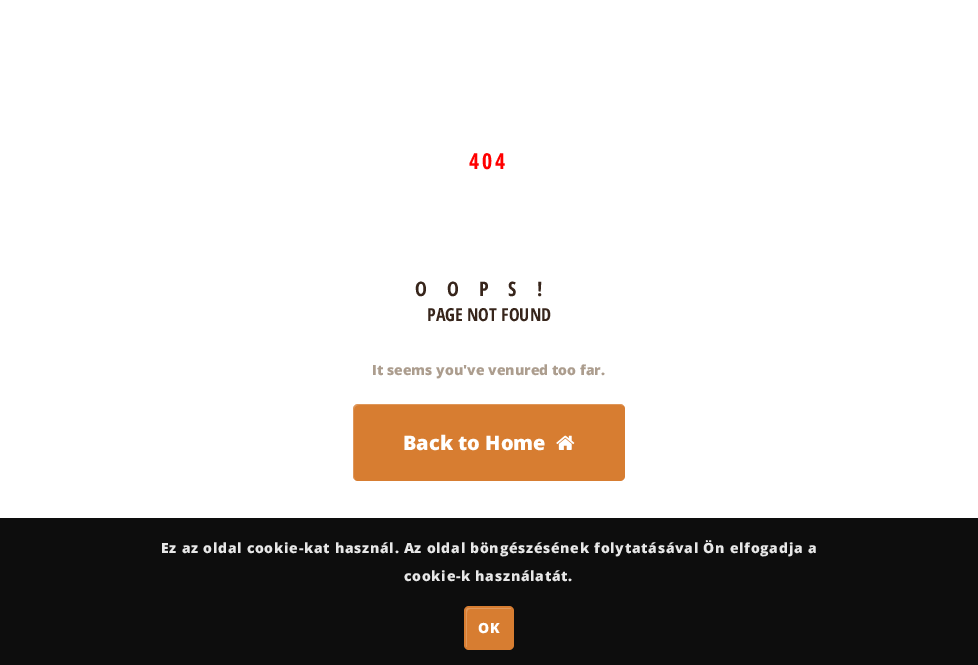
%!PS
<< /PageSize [978 665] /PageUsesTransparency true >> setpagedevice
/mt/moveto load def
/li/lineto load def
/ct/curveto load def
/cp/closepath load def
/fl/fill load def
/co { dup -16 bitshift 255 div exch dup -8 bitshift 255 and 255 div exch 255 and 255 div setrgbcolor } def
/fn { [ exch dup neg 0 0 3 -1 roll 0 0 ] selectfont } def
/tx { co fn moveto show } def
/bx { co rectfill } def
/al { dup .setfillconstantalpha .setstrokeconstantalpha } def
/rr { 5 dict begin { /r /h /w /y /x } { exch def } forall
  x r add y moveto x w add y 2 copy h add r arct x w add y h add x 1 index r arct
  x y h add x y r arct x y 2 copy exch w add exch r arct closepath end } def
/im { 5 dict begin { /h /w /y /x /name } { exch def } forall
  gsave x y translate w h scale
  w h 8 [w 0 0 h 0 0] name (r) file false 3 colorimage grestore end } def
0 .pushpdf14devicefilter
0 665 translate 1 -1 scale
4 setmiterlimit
0 0 978 665 16#FFFFFF bx
16#D77D31 co
353 404 272 77 5 rr fl
0.2 al
16#FFFFFF co
359 405 mt 621 405 li 624 406 li 623 405 621 404 620 404 ct 358 404 li 355 404 353 406 353 409 ct 353 476 li 353 477 354 479 355 480 ct 354 477 li 354 410 li 354 407 356 405 359 405 ct cp fl
1 al
(media/1.raw) 556 435 19 15 im
0 518 978 147 16#0D0D0D bx
16#D77D31 co
464 606 50 44 5 rr fl
16#DF975A co
470 609 mt 511 609 li 511 608 510 608 509 608 ct 469 608 li 467 608 466 609 466 611 ct 466 645 li 466 646 466 647 467 647 ct 467 618 li 467 615 466 609 470 609 ct cp fl
/OpenSansCondensed-Bold 22 fn
16#FF0000 co
469 169 mt 3 0 (404) ashow
/OpenSansCondensed-Bold 20 fn
16#37251B co
415 296 mt 20 0 (OOPS!) ashow
(PAGE NOT FOUND) 427 321 /OpenSansCondensed-Bold 18 16#37251B tx
(It seems you've venured too far.) 372 375 /OpenSans-ExtraBold 14 16#AC9D8E tx
(Back to Home) 403 450 /OpenSans-ExtraBold 20 16#FFFFFF tx
/OpenSans-ExtraBold 14 fn
16#E7E7E7 co
161 553 mt .7 0 (Ez az oldal cookie-kat használ. Az oldal böngészésének folytatásával Ön elfogadja a) ashow
404 581 mt .7 0 (cookie-k használatát.) ashow
16#FFFFFF co
478 633 mt .7 0 (OK) ashow
.poppdf14devicefilter showpage
